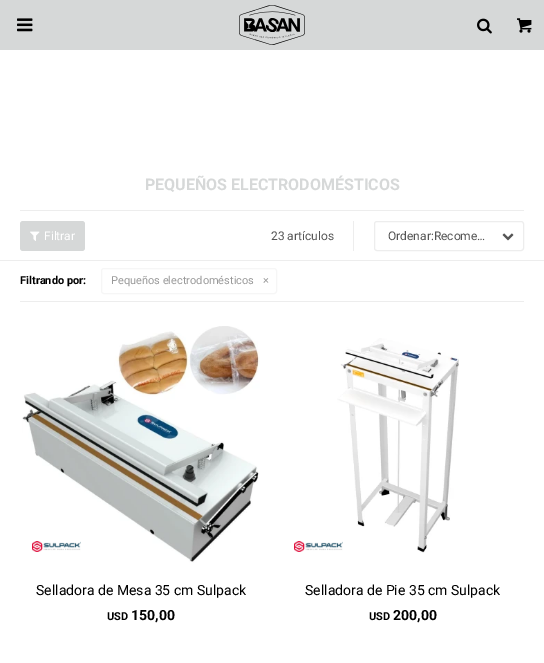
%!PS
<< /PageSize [544 663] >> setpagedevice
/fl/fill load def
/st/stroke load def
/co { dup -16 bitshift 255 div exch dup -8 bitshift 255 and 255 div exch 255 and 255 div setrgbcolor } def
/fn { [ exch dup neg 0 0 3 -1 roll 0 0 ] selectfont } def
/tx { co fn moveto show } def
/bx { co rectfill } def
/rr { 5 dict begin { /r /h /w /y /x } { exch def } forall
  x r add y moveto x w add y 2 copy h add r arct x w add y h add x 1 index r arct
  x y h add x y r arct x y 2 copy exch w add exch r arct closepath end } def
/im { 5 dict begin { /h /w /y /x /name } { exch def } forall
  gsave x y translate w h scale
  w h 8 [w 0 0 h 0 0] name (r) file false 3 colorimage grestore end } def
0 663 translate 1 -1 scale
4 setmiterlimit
0 0 544 663 16#FFFFFF bx
0 0 544 50 16#D6D8D8 bx
(media/1.raw) 17 18 16 14 im
(media/2.raw) 239 5 66 40 im
(media/3.raw) 477 18 15 16 im
(media/4.raw) 517 18 15 15 im
20 210 504 1 16#EDEDED bx
16#D6D8D8 co
20 221 65 30 3 rr fl
(media/5.raw) 30 231 10 10 im
353 221 1 30 16#EDEDED bx
(media/6.raw) 502 233 12 8 im
374.5 221.5 149 29 2.5 rr st
0 260 544 1 16#EDEDED bx
20 301 504 1 16#EDEDED bx
16#F6F6F6 co
101.5 268.5 175 25 2.5 rr st
(media/7.raw) 22 326 238 237 im
(media/8.raw) 32 541 49 11 im
(media/10.raw) 337 338 122 215 im
(media/9.raw) 294 541 49 11 im
(PEQUEÑOS ELECTRODOMÉSTICOS) 145 190 /Roboto-Bold 16 16#D6D8D8 tx
(Filtrar) 44 240 /Roboto-Regular 12 16#FFFFFF tx
(23 artículos) 271 240 /Roboto-Regular 12 16#555555 tx
(Ordenar:Recome…) 388 240 /Roboto-Regular 12 16#555555 tx
(Filtrando por:) 20 284 /Roboto-Bold 11 16#000000 tx
(Pequeños electrodomésticos) 111 284 /Roboto-Regular 11 16#999999 tx
(×) 263 284 /Roboto-Regular 11 16#999999 tx
(Selladora de Mesa 35 cm Sulpack) 36 595 /Roboto-Regular 14 16#000000 tx
(USD) 107 620 /Roboto-Bold 11 16#000000 tx
(150,00) 131 620 /Roboto-Bold 14 16#000000 tx
(Selladora de Pie 35 cm Sulpack) 305 595 /Roboto-Regular 14 16#000000 tx
(USD) 369 620 /Roboto-Bold 11 16#000000 tx
(200,00) 393 620 /Roboto-Bold 14 16#000000 tx
showpage
